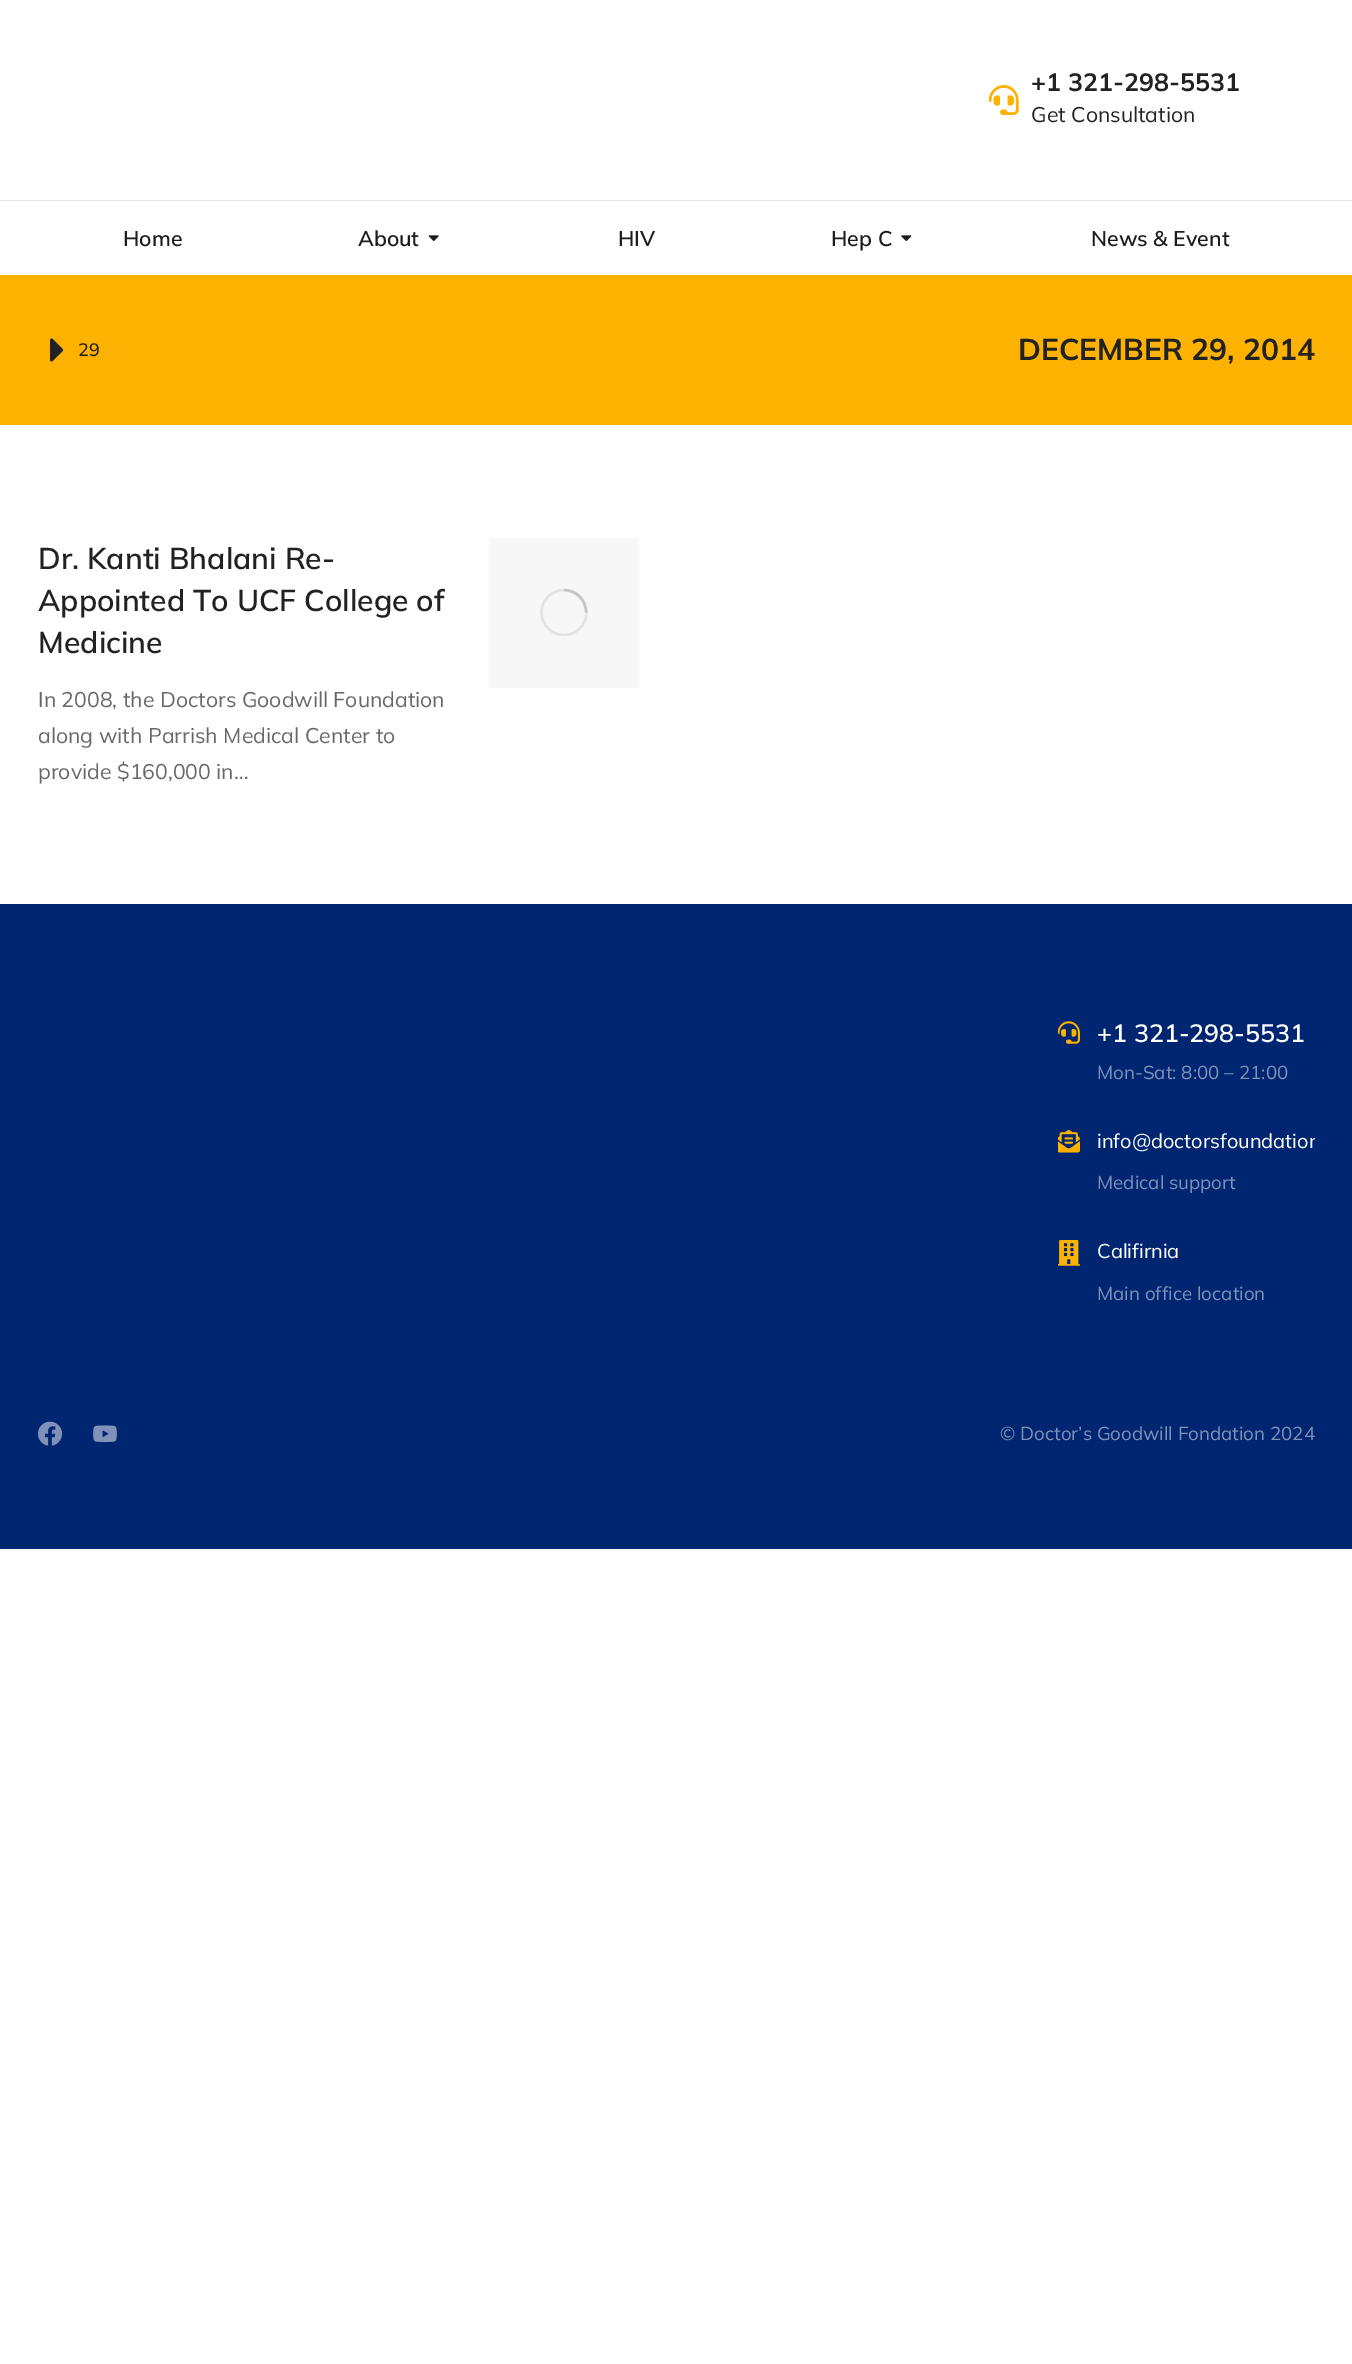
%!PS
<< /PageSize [1352 2364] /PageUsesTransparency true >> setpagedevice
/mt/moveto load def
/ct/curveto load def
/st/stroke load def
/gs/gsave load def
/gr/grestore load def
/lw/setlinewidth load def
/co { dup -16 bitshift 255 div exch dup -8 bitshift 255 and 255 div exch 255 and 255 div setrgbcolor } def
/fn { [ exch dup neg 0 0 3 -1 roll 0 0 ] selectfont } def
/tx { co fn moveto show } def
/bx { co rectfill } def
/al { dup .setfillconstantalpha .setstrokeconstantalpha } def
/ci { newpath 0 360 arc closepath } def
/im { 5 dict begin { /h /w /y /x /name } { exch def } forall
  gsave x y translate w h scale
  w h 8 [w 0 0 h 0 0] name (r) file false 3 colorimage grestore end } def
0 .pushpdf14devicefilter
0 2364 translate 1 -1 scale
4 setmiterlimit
0 0 1352 2364 16#FFFFFF bx
(media/1.raw) 989 85 30 30 im
0 200 1352 1 16#E3E3E3 bx
(media/2.raw) 428 235 11 6 im
(media/3.raw) 901 235 11 6 im
0 275 1352 150 16#FDB100 bx
(media/4.raw) 50 338 14 24 im
489 538 150 150 16#F7F7F7 bx
gs
540 589 48 47 rectclip
16#E3E3E3 co
2.5 lw
564 612.5 22.5 ci st
gr
0.25 al
16#666666 co
2.5 lw
586 612.5 mt 586 600 576 590 564 590 ct st
1 al
0 904 1352 645 16#002571 bx
(media/5.raw) 1058 1021 22 23 im
(media/6.raw) 1058 1130 22 23 im
(media/7.raw) 1058 1240 22 26 im
(media/8.raw) 38 1421 25 25 im
(media/9.raw) 93 1425 24 18 im
(+1 321-298-5531) 1031 91 /Mulish-Bold 25 16#222222 tx
(Get Consultation) 1031 122 /Mulish-Regular 21.25 16#222222 tx
(Home) 123 246 /Mulish-SemiBold 21.25 16#1C1C1C tx
(About) 358 246 /Mulish-SemiBold 21.25 16#1C1C1C tx
(HIV) 618 246 /Mulish-SemiBold 21.25 16#1C1C1C tx
(Hep C) 831 246 /Mulish-SemiBold 21.25 16#1C1C1C tx
(News & Event) 1091 246 /Mulish-SemiBold 21.25 16#1C1C1C tx
(29) 78 356 /Mulish-Medium 18 16#222222 tx
(DECEMBER 29, 2014) 1018 360 /Mulish-Bold 30 16#222222 tx
(Dr. Kanti Bhalani Re-) 38 569 /Mulish-SemiBold 30 16#222222 tx
(Appointed To UCF College of) 38 611 /Mulish-SemiBold 30 16#222222 tx
(Medicine) 38 653 /Mulish-SemiBold 30 16#222222 tx
(In 2008, the Doctors Goodwill Foundation) 38 707 /Mulish-Regular 21.25 16#676767 tx
(along with Parrish Medical Center to) 38 743 /Mulish-Regular 21.25 16#676767 tx
(provide $160,000 in…) 38 779 /Mulish-Regular 21.25 16#676767 tx
(+1 321-298-5531) 1097 1042 /Mulish-SemiBold 25 16#FFFFFF tx
(Mon-Sat: 8:00 – 21:00) 1097 1079 /Mulish-Regular 18.75 16#8092B8 tx
gs
1053 1125 262 73 rectclip
(info@doctorsfoundation) 1097 1148 /Mulish-Regular 20 16#FFFFFF tx
gr
(Medical support) 1097 1189 /Mulish-Regular 18.75 16#8092B8 tx
(Califirnia) 1097 1258 /Mulish-Regular 20 16#FFFFFF tx
(Main office location) 1097 1300 /Mulish-Regular 18.75 16#8092B8 tx
(© Doctor’s Goodwill Fondation 2024) 1000 1440 /Mulish-Regular 18.75 16#8092B8 tx
.poppdf14devicefilter showpage
